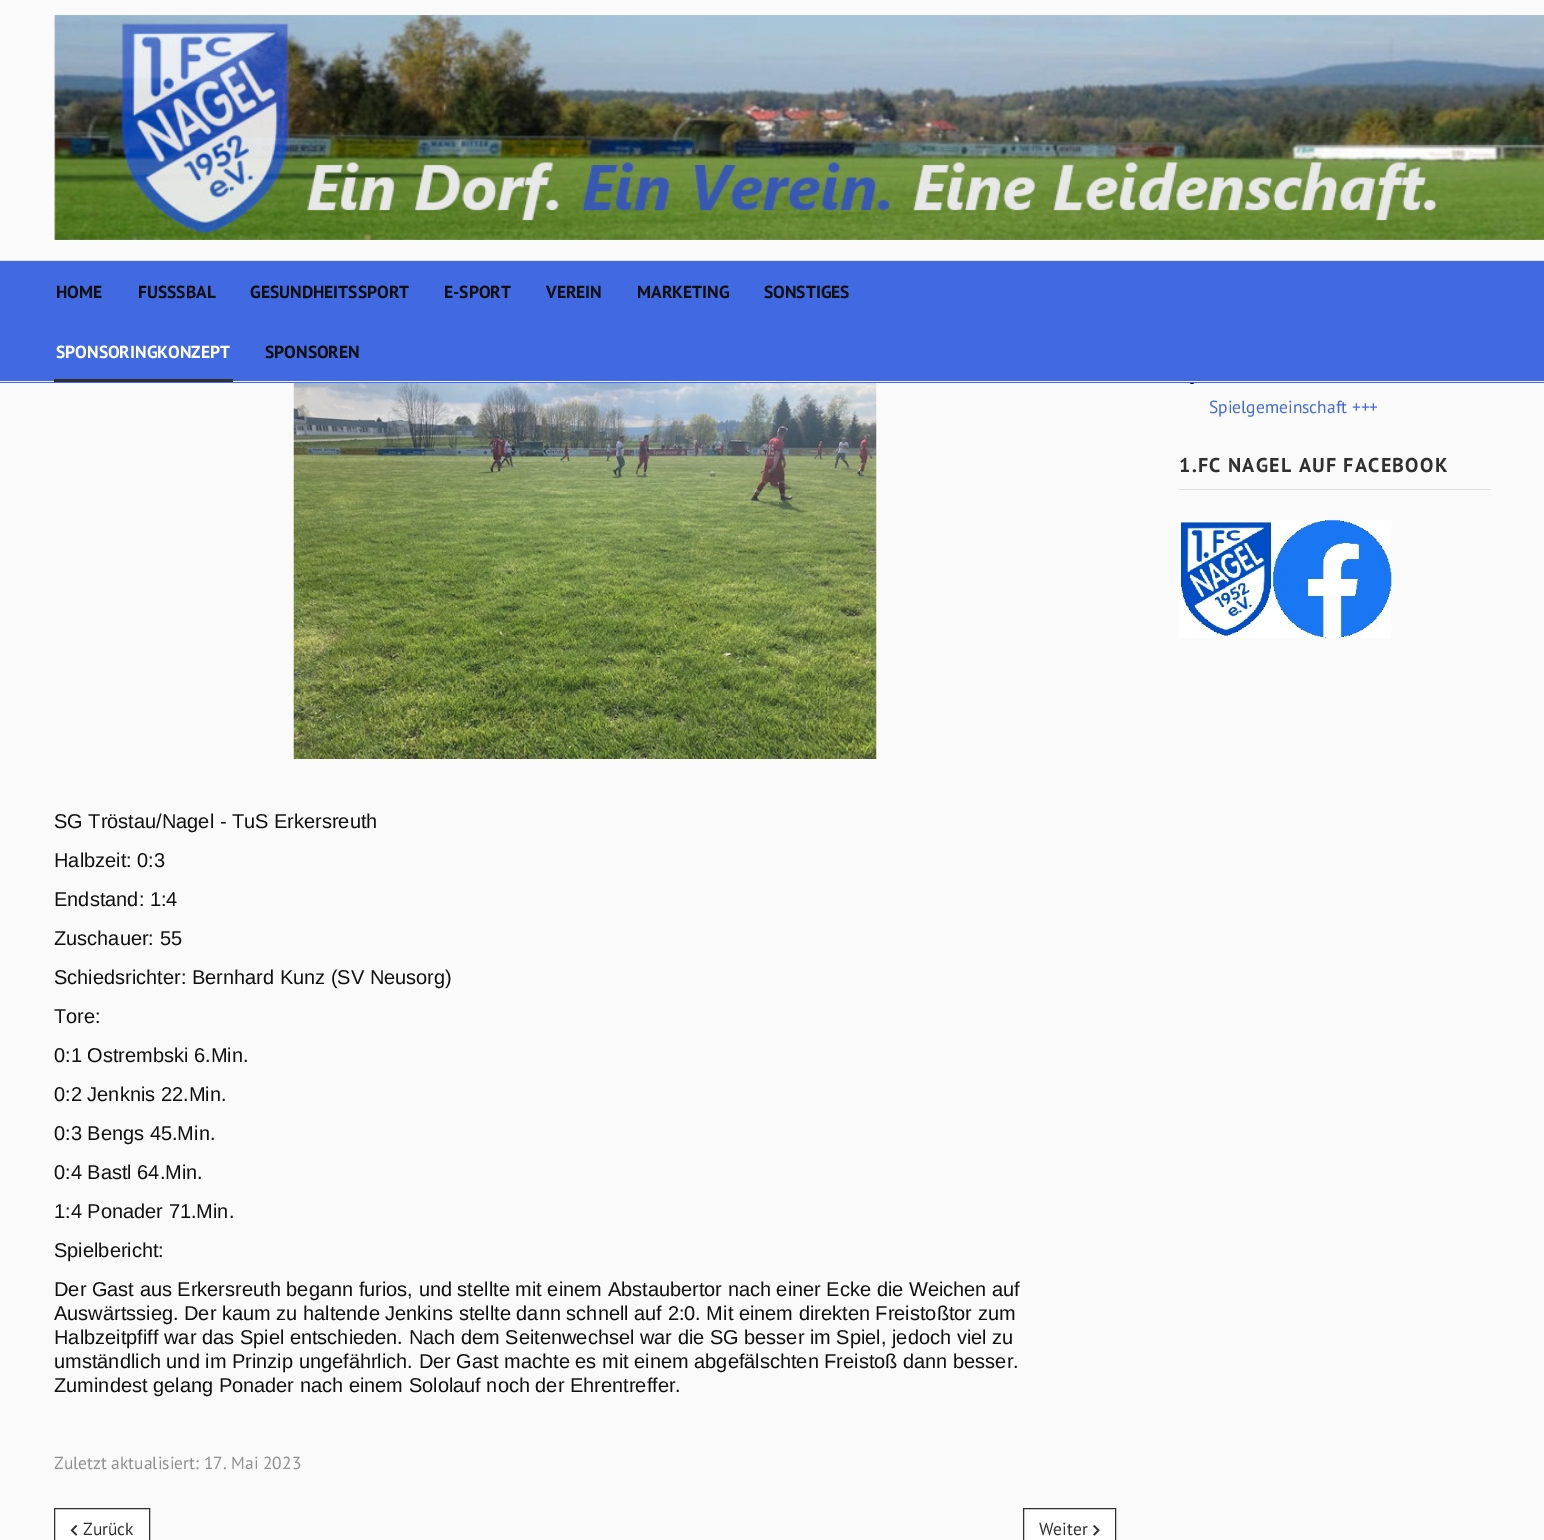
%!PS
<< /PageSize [1544 1540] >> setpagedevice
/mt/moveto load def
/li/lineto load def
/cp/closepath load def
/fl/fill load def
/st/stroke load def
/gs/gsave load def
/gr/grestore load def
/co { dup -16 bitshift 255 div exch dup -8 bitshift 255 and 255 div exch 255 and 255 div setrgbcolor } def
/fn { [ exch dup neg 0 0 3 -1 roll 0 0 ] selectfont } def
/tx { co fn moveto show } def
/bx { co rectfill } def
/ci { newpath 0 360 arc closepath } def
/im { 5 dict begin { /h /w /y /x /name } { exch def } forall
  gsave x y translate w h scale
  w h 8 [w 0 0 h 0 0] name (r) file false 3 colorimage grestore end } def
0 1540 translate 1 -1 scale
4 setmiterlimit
0 0 1544 1540 16#FAFAFA bx
0 260 1544 1 16#E0E0E0 bx
(media/1.raw) 54 15 1490 225 im
16#101010 co
1192 381 3 ci fl
0 261 1544 122 16#4169E1 bx
0 381 1544 1 16#EEEEEE bx
54 379 179 3 16#303030 bx
1179 489 312 1 16#E0E0E0 bx
(media/2.raw) 1179 520 213 118 im
(media/3.raw) 293 383 584 376 im
16#FFFFFF co
54.5 1508.5 mt 149.5 1508.5 li 149.5 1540.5 li 54.5 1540.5 li cp gs fl gr
16#303030 co
st
(media/4.raw) 70 1525 8 11 im
16#FFFFFF co
1023.5 1508.5 mt 1115.5 1508.5 li 1115.5 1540.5 li 1023.5 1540.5 li cp gs fl gr
16#303030 co
st
(media/5.raw) 1093 1525 7 11 im
(HOME) 56 298 /PTSans-Bold 17.5 16#101010 tx
(FUSSSBAL) 138 298 /PTSans-Bold 17.5 16#101010 tx
(GESUNDHEITSSPORT) 250 298 /PTSans-Bold 17.5 16#101010 tx
(E-SPORT) 444 298 /PTSans-Bold 17.5 16#101010 tx
(VEREIN) 546 298 /PTSans-Bold 17.5 16#101010 tx
(MARKETING) 637 298 /PTSans-Bold 17.5 16#101010 tx
(SONSTIGES) 764 298 /PTSans-Bold 17.5 16#101010 tx
(SPONSORINGKONZEPT) 56 358 /PTSans-Bold 17.5 16#FFFFFF tx
(SPONSOREN) 265 358 /PTSans-Bold 17.5 16#101010 tx
(Spielgemeinschaft +++) 1209 413 /PTSans-Regular 17.5 16#4169E1 tx
/PTSans-Bold 20 fn
16#303030 co
1179 472 mt 1.25 0 (1.FC NAGEL AUF FACEBOOK) ashow
(SG Tröstau/Nagel - TuS Erkersreuth) 54 828 /LiberationSans-Regular 20 16#101010 tx
(Halbzeit: 0:3) 54 867 /LiberationSans-Regular 20 16#101010 tx
(Endstand: 1:4) 54 906 /LiberationSans-Regular 20 16#101010 tx
(Zuschauer: 55) 54 945 /LiberationSans-Regular 20 16#101010 tx
(Schiedsrichter: Bernhard Kunz \(SV Neusorg\)) 54 984 /LiberationSans-Regular 20 16#101010 tx
(Tore:) 54 1023 /LiberationSans-Regular 20 16#101010 tx
(0:1 Ostrembski 6.Min.) 54 1062 /LiberationSans-Regular 20 16#101010 tx
(0:2 Jenknis 22.Min.) 54 1101 /LiberationSans-Regular 20 16#101010 tx
(0:3 Bengs 45.Min.) 54 1140 /LiberationSans-Regular 20 16#101010 tx
(0:4 Bastl 64.Min.) 54 1179 /LiberationSans-Regular 20 16#101010 tx
(1:4 Ponader 71.Min.) 54 1218 /LiberationSans-Regular 20 16#101010 tx
(Spielbericht:) 54 1257 /LiberationSans-Regular 20 16#101010 tx
(Der Gast aus Erkersreuth begann furios, und stellte mit einem Abstaubertor nach einer Ecke die Weichen auf) 54 1296 /LiberationSans-Regular 20 16#101010 tx
(Auswärtssieg. Der kaum zu haltende Jenkins stellte dann schnell auf 2:0. Mit einem direkten Freistoßtor zum) 54 1320 /LiberationSans-Regular 20 16#101010 tx
(Halbzeitpfiff war das Spiel entschieden. Nach dem Seitenwechsel war die SG besser im Spiel, jedoch viel zu) 54 1344 /LiberationSans-Regular 20 16#101010 tx
(umständlich und im Prinzip ungefährlich. Der Gast machte es mit einem abgefälschten Freistoß dann besser.) 54 1368 /LiberationSans-Regular 20 16#101010 tx
(Zumindest gelang Ponader nach einem Sololauf noch der Ehrentreffer.) 54 1392 /LiberationSans-Regular 20 16#101010 tx
(Zuletzt aktualisiert: 17. Mai 2023) 54 1469 /PTSans-Regular 17.5 16#909090 tx
(Zurück) 83 1535 /PTSans-Regular 17.5 16#303030 tx
(Weiter) 1039 1535 /PTSans-Regular 17.5 16#303030 tx
showpage
